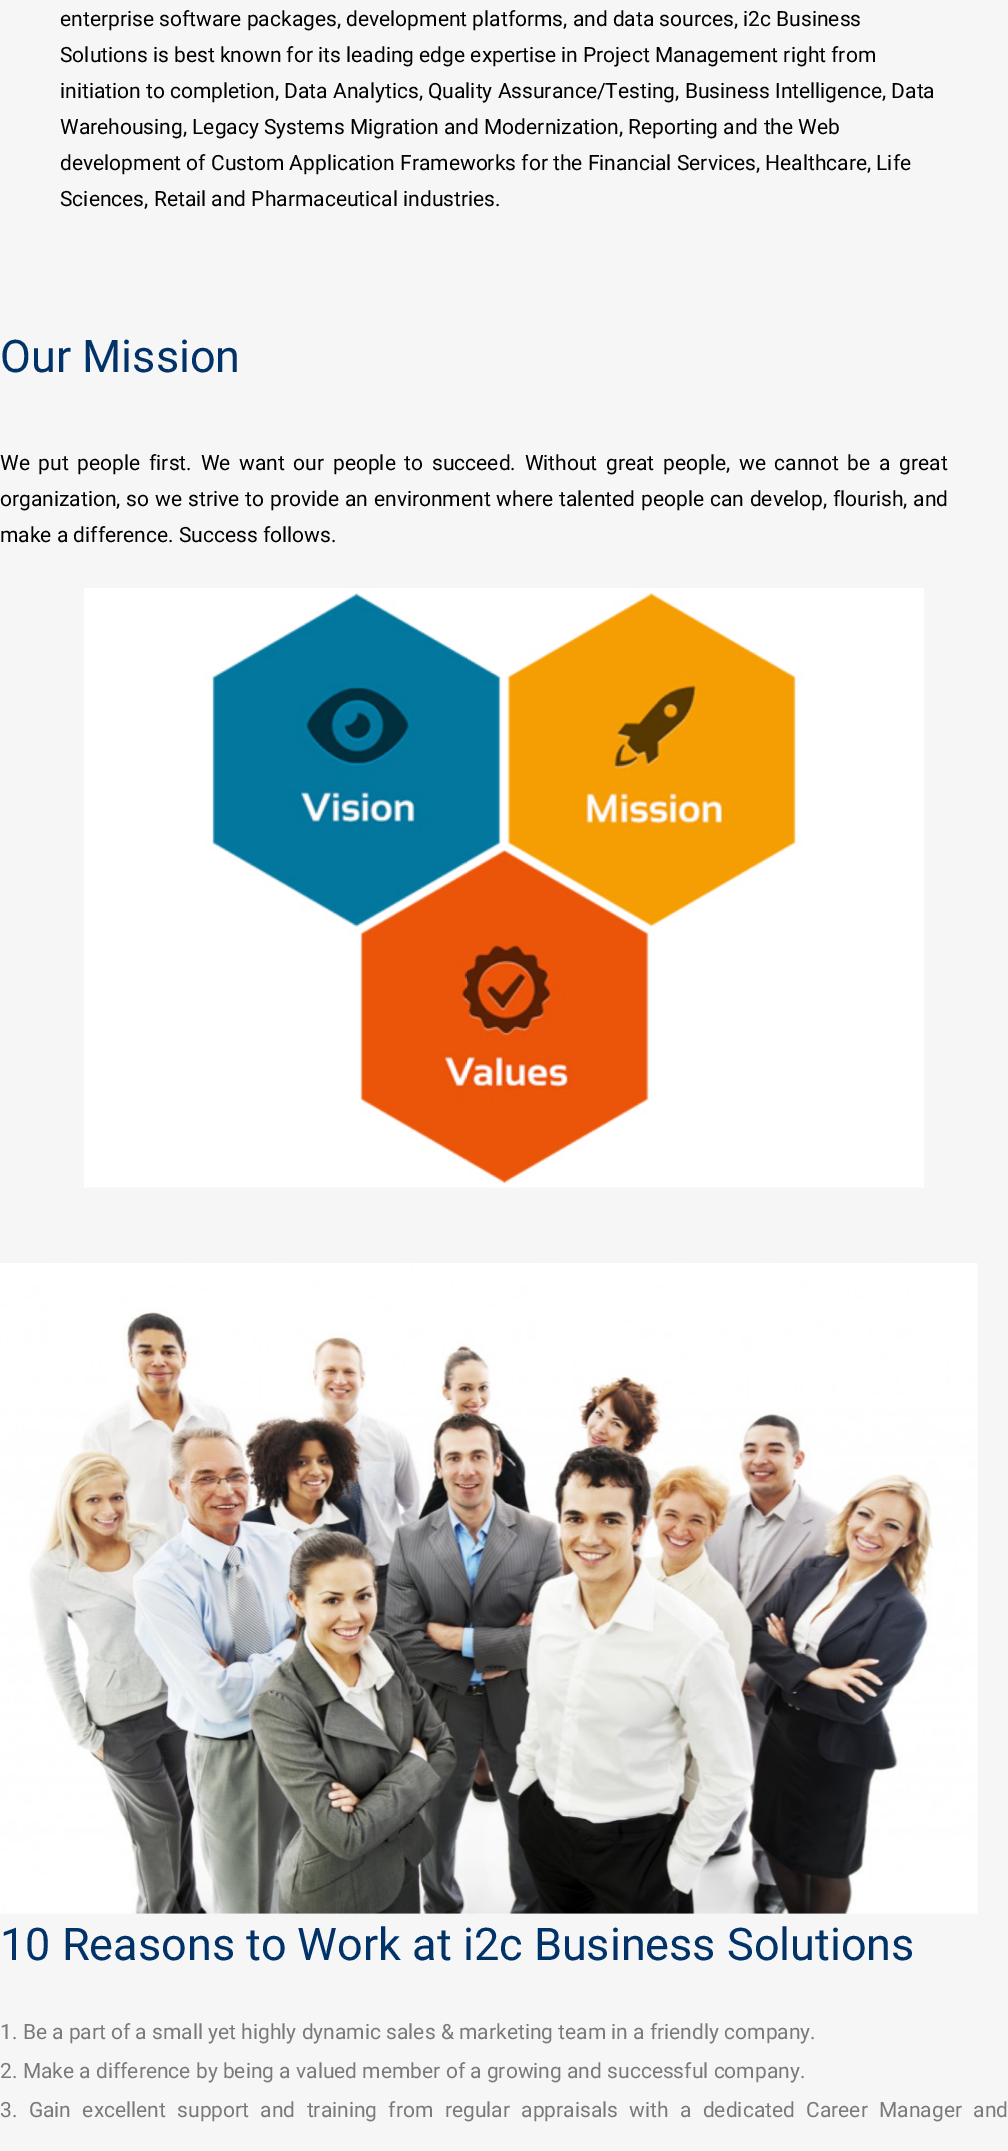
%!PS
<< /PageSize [1008 2151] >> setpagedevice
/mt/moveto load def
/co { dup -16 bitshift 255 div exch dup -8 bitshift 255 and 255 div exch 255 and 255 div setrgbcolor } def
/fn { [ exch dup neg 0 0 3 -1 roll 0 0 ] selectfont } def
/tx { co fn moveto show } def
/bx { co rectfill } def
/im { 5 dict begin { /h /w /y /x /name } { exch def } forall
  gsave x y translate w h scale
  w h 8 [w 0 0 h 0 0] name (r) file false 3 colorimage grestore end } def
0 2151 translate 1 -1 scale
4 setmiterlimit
0 0 1008 2151 16#F6F6F6 bx
(media/1.raw) 84 588 840 600 im
(media/2.raw) 0 1263 978 651 im
(enterprise software packages, development platforms, and data sources, i2c Business) 60 26 /Roboto-Regular 21 16#000000 tx
(Solutions is best known for its leading edge expertise in Project Management right from) 60 62 /Roboto-Regular 21 16#000000 tx
(initiation to completion, Data Analytics, Quality Assurance/Testing, Business Intelligence, Data) 60 98 /Roboto-Regular 21 16#000000 tx
(Warehousing, Legacy Systems Migration and Modernization, Reporting and the Web) 60 134 /Roboto-Regular 21 16#000000 tx
(development of Custom Application Frameworks for the Financial Services, Healthcare, Life) 60 170 /Roboto-Regular 21 16#000000 tx
(Sciences, Retail and Pharmaceutical industries.) 60 206 /Roboto-Regular 21 16#000000 tx
(Our Mission) 0 372 /Roboto-Regular 45 16#023368 tx
/Roboto-Regular 21 fn
16#000000 co
0 470 mt 3.5 0 32 (We put people first. We want our people to succeed. Without great people, we cannot be a great) widthshow
0 506 mt .7 0 32 (organization, so we strive to provide an environment where talented people can develop, flourish, and) widthshow
(make a difference. Success follows.) 0 542 /Roboto-Regular 21 16#000000 tx
(10 Reasons to Work at i2c Business Solutions) 0 1960 /Roboto-Regular 45 16#023368 tx
(1. Be a part of a small yet highly dynamic sales & marketing team in a friendly company.) 0 2039 /Roboto-Regular 21 16#7A7A7A tx
(2. Make a difference by being a valued member of a growing and successful company.) 0 2078 /Roboto-Regular 21 16#7A7A7A tx
0 2117 mt 6.1 0 32 (3. Gain excellent support and training from regular appraisals with a dedicated Career Manager and) widthshow
showpage
